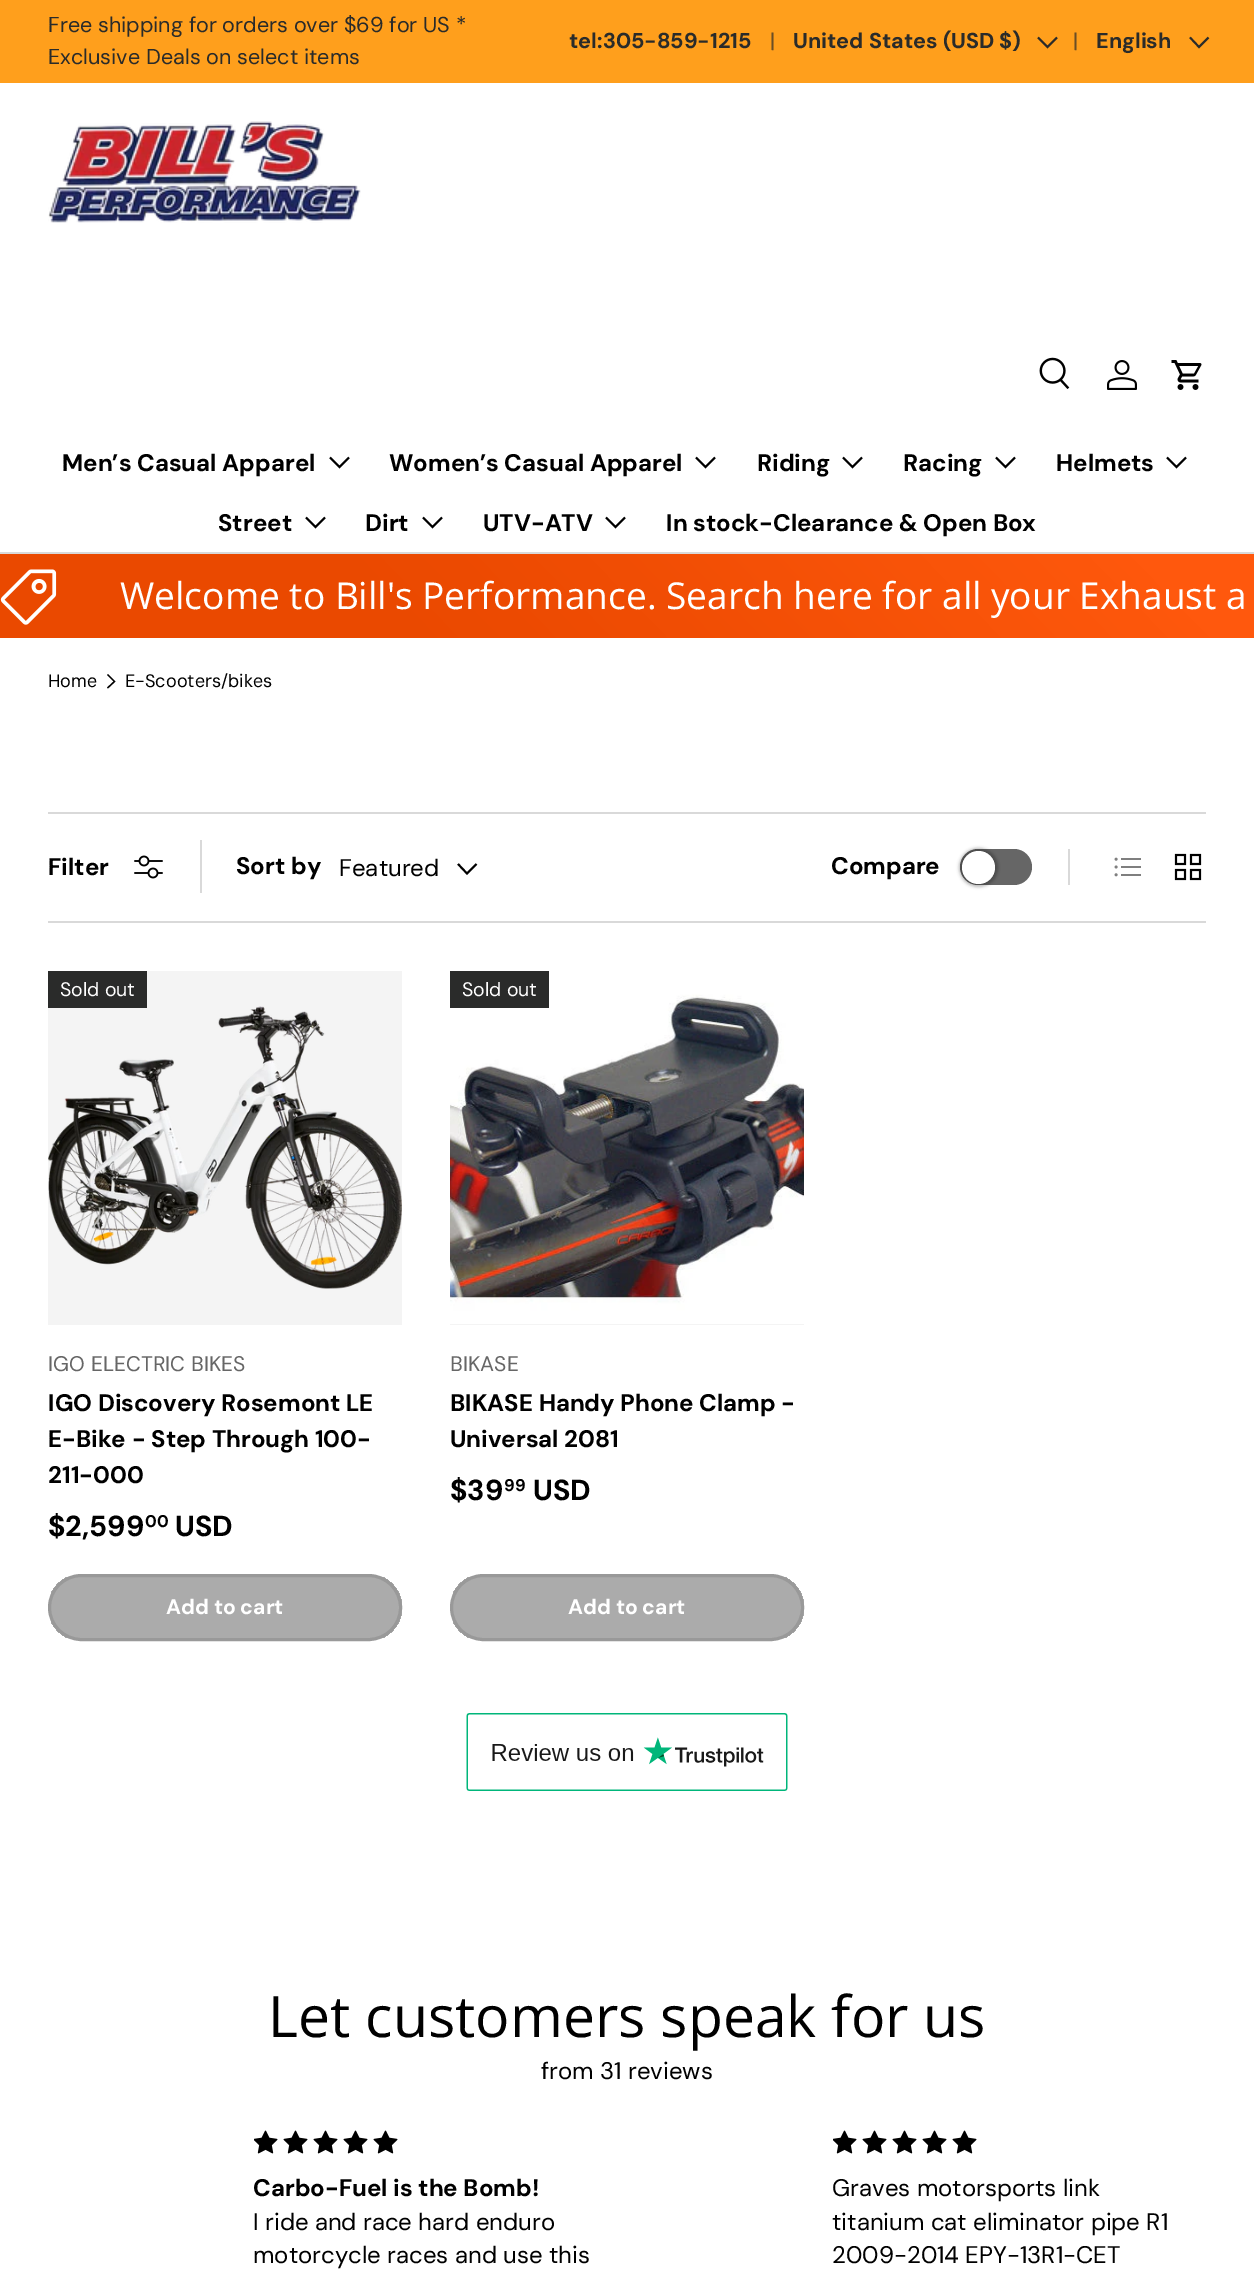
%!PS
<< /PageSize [1254 2276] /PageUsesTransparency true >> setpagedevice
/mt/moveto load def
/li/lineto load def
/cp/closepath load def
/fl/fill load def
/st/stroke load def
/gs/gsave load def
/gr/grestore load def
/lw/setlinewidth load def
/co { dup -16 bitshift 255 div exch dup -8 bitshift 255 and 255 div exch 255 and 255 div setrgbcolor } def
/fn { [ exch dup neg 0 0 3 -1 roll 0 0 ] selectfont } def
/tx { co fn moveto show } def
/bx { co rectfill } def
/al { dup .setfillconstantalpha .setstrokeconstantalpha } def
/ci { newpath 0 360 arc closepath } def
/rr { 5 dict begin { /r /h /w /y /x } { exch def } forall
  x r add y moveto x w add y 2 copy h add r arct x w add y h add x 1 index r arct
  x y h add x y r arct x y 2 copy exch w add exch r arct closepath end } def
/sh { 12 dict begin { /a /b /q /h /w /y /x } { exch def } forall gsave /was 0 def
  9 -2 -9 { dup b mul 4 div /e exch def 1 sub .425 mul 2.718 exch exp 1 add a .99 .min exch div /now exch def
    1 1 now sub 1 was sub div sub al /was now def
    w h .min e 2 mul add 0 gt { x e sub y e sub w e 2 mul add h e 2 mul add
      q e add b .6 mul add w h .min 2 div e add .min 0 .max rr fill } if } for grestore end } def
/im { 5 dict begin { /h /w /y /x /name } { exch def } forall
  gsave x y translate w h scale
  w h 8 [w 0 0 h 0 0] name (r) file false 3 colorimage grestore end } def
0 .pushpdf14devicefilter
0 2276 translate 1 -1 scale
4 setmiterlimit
0 0 1254 2276 16#FFFFFF bx
0 0 1254 83 16#FF9F1C bx
16#2A2B2A co
1.9 lw
1057 37.5 mt 1047.5 47 li 1038 37.5 li st
1208.5 37.5 mt 1199 47 li 1190 37.5 li st
0 552 1254 2 16#D9D9D9 bx
(media/1.raw) 48 121 313 102 im
(media/2.raw) 1039 357 31 32 im
(media/3.raw) 1107 360 30 30 im
(media/4.raw) 1171 360 31 30 im
16#000000 co
349 457.5 mt 339.5 467 li 330 457.5 li st
715 457.5 mt 705.5 467 li 696 457.5 li st
862 457.5 mt 852.5 467 li 843 457.5 li st
1015 457.5 mt 1005.5 467 li 996 457.5 li st
1186 457.5 mt 1176.5 467 li 1167 457.5 li st
325 517.5 mt 315.5 527 li 306 517.5 li st
442 517.5 mt 432.5 527 li 423 517.5 li st
625 517.5 mt 615.5 527 li 606 517.5 li st
gs 0 554 mt 1254 554 li 1254 638 li 0 638 li cp clip newpath
<< /ShadingType 2 /ColorSpace /DeviceRGB /Coords [282 929 972 262] /Extend [true true] /Function << /FunctionType 3 /Domain [0 1] /Functions [<< /FunctionType 2 /Domain [0 1] /C0 [.918 .286 0] /C1 [.918 .286 0] /N 1 >> << /FunctionType 2 /Domain [0 1] /C0 [.918 .286 0] /C1 [.918 .286 0] /N 1 >> << /FunctionType 2 /Domain [0 1] /C0 [.918 .286 0] /C1 [1 .345 .051] /N 1 >> << /FunctionType 2 /Domain [0 1] /C0 [1 .345 .051] /C1 [1 .345 .051] /N 1 >>] /Bounds [.08 .32 .92] /Encode [0 1 0 1 0 1 0 1] >> >> shfill gr
(media/5.raw) 0 569 57 56 im
1.3 lw
107.5 674.5 mt 114.5 681.5 li 107.5 688 li st
48 812 1158 2 16#D9D9D9 bx
48 921 1158 2 16#D9D9D9 bx
(media/6.raw) 134 855 29 24 im
200 840 2 53 16#D9D9D9 bx
16#000000 co
1.9 lw
476.5 864 mt 467 873.5 li 458 864 li st
16#666666 co
960 849 72 36 18 rr fl
16#000000 co
959 848 39 39 19.5 1.5 .25 sh
16#FFFFFF co
978.5 867.5 16.5 ci fl
1068 849 2 36 16#D9D9D9 bx
(media/7.raw) 1114 857 27 20 im
(media/8.raw) 1174 853 28 28 im
48 971 354 354 16#F4F4F4 bx
(media/9.raw) 48 1006 354 283 im
48 971 99 37 16#2A2B2A bx
gs
48 1574 354 67 33.5 rr clip newpath
gs 51 1577 mt 402 1577 li 402 1638 li 51 1638 li cp clip newpath
<< /ShadingType 2 /ColorSpace /DeviceRGB /Coords [74 1483 1072 1732] /Extend [true true] /Function << /FunctionType 3 /Domain [0 1] /Functions [<< /FunctionType 2 /Domain [0 1] /C0 [.671 .671 .671] /C1 [.671 .671 .671] /N 1 >> << /FunctionType 2 /Domain [0 1] /C0 [.6 .6 .6] /C1 [.6 .6 .6] /N 1 >>] /Bounds [.6] /Encode [0 1 0 1] >> >> shfill gr
gr
16#999999 co
3 lw
49.5 1575.5 351 64 32 rr st
450 1324 354 1 16#F4F4F4 bx
(media/10.raw) 450 971 354 353 im
450 971 99 37 16#2A2B2A bx
gs
450 1574 354 67 33.5 rr clip newpath
gs 453 1577 mt 804 1577 li 804 1638 li 453 1638 li cp clip newpath
<< /ShadingType 2 /ColorSpace /DeviceRGB /Coords [476 1483 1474 1732] /Extend [true true] /Function << /FunctionType 3 /Domain [0 1] /Functions [<< /FunctionType 2 /Domain [0 1] /C0 [.671 .671 .671] /C1 [.671 .671 .671] /N 1 >> << /FunctionType 2 /Domain [0 1] /C0 [.6 .6 .6] /C1 [.6 .6 .6] /N 1 >>] /Bounds [.6] /Encode [0 1 0 1] >> >> shfill gr
gr
16#999999 co
451.5 1575.5 351 64 32 rr st
(media/11.raw) 466 1713 322 78 im
(media/12.raw) 254 2130 24 24 im
(media/13.raw) 283 2130 25 24 im
(media/13.raw) 313 2130 25 24 im
(media/13.raw) 343 2130 25 24 im
(media/13.raw) 373 2130 25 24 im
(media/12.raw) 833 2130 24 24 im
(media/13.raw) 862 2130 25 24 im
(media/13.raw) 892 2130 25 24 im
(media/13.raw) 922 2130 25 24 im
(media/13.raw) 952 2130 25 24 im
(Free shipping for orders over $69 for US *) 48 32 /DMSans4-Regular 21.6 16#2A2B2A tx
(Exclusive Deals on select items) 48 64 /DMSans4-Regular 21.6 16#2A2B2A tx
(tel:305-859-1215) 569 48 /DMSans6-Bold 21.6 16#2A2B2A tx
(|) 770 48 /DMSans4-Regular 21.6 16#6A4E26 tx
(United States \(USD $\)) 793 48 /DMSans6-Bold 21.6 16#2A2B2A tx
(|) 1073 48 /DMSans4-Regular 21.6 16#6A4E26 tx
(English) 1096 48 /DMSans6-Bold 21.6 16#2A2B2A tx
(Men’s Casual Apparel) 62 471 /DMSans-Bold 24 16#000000 tx
(Women’s Casual Apparel) 389 471 /DMSans-Bold 24 16#000000 tx
(Riding) 757 471 /DMSans-Bold 24 16#000000 tx
(Racing) 903 471 /DMSans-Bold 24 16#000000 tx
(Helmets) 1056 471 /DMSans-Bold 24 16#000000 tx
(Street) 218 531 /DMSans-Bold 24 16#000000 tx
(Dirt) 365 531 /DMSans-Bold 24 16#000000 tx
(UTV-ATV) 483 531 /DMSans-Bold 24 16#000000 tx
(In stock-Clearance & Open Box) 666 531 /DMSans-Bold 24 16#000000 tx
(Welcome to Bill's Performance. Search here for all your Exhaust a) 120 609 /OpenSans-Regular 37.1 16#FFFFFF tx
(Home) 48 687 /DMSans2-Regular 18 16#000000 tx
(E-Scooters/bikes) 125 687 /DMSans2-Regular 18 16#000000 tx
(Filter) 48 875 /DMSans-Bold 24 16#000000 tx
(Sort by) 236 874 /DMSans-Bold 24 16#000000 tx
(Featured) 339 876 /DMSans-Regular 24 16#000000 tx
(Compare) 831 874 /DMSans-Bold 24 16#000000 tx
(Sold out) 60 996 /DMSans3-Regular 19.5 16#FFFFFF tx
(IGO ELECTRIC BIKES) 48 1371 /DMSans2-Regular 21.1 16#666666 tx
(IGO Discovery Rosemont LE) 48 1411 /DMSans-Bold 24 16#000000 tx
(E-Bike - Step Through 100-) 48 1447 /DMSans-Bold 24 16#000000 tx
(211-000) 48 1483 /DMSans-Bold 24 16#000000 tx
($2,599) 48 1536 /DMSans2-Bold 29 16#000000 tx
(00) 145 1527 /DMSans3-Bold 17 16#000000 tx
(USD) 175 1536 /DMSans2-Bold 29 16#000000 tx
(Add to cart) 166 1614 /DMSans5-Bold 21.1 16#FFFFFF tx
(Sold out) 462 996 /DMSans3-Regular 19.5 16#FFFFFF tx
(BIKASE) 450 1371 /DMSans2-Regular 21.1 16#666666 tx
(BIKASE Handy Phone Clamp -) 450 1411 /DMSans-Bold 24 16#000000 tx
(Universal 2081) 450 1447 /DMSans-Bold 24 16#000000 tx
($39) 450 1500 /DMSans2-Bold 29 16#000000 tx
(99) 504 1491 /DMSans4-Bold 17 16#000000 tx
(USD) 533 1500 /DMSans2-Bold 29 16#000000 tx
(Add to cart) 568 1614 /DMSans5-Bold 21.1 16#FFFFFF tx
(Let customers speak for us) 268 2037 /OpenSans-Regular 57.2 16#000000 tx
(from 31 reviews) 541 2079 /DMSans-Regular 24 16#000000 tx
(Carbo-Fuel is the Bomb!) 253 2196 /DMSans-Bold 24 16#000000 tx
(I ride and race hard enduro) 253 2230 /DMSans-Regular 24 16#000000 tx
(motorcycle races and use this) 253 2263 /DMSans-Regular 24 16#000000 tx
(Graves motorsports link) 832 2196 /DMSans-Regular 24 16#000000 tx
(titanium cat eliminator pipe R1) 832 2230 /DMSans-Regular 24 16#000000 tx
(2009-2014 EPY-13R1-CET) 832 2263 /DMSans-Regular 24 16#000000 tx
.poppdf14devicefilter showpage
